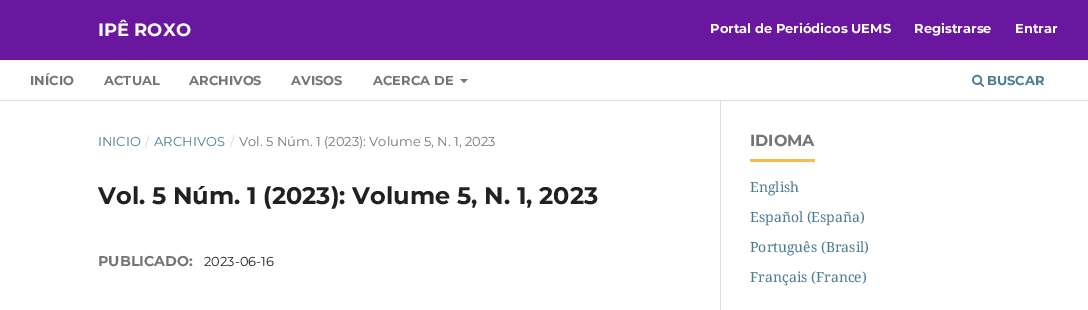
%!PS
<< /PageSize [1088 310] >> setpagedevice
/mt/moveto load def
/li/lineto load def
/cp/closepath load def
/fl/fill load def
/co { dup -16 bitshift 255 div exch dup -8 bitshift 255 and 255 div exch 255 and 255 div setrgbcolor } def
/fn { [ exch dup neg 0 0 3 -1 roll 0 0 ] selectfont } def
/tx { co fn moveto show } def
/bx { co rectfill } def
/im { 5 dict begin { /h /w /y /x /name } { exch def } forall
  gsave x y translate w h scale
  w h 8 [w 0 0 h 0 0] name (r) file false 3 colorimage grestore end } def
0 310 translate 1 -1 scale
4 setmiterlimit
0 0 1088 310 16#FFFFFF bx
0 0 1088 60 16#69179F bx
0 100 1088 1 16#DDDDDD bx
16#757575 co
460 79 mt 468 79 li 464 83 li cp fl
(media/1.raw) 972 74 12 13 im
720 101 1 209 16#DDDDDD bx
750 159 65 3 16#F7BC4A bx
(IPÊ ROXO) 98 36 /Montserrat-Bold 18 16#FFFFFF tx
(Portal de Periódicos UEMS) 710 33 /Montserrat-Bold 13 16#FFFFFF tx
(Registrarse) 914 33 /Montserrat-Bold 13 16#FFFFFF tx
(Entrar) 1015 33 /Montserrat-Bold 13 16#FFFFFF tx
(INÍCIO) 30 85 /Montserrat-Bold 13 16#757575 tx
(ACTUAL) 104 85 /Montserrat-Bold 13 16#757575 tx
(ARCHIVOS) 189 85 /Montserrat-Bold 13 16#757575 tx
(AVISOS) 291 85 /Montserrat-Bold 13 16#757575 tx
(ACERCA DE) 373 85 /Montserrat-Bold 13 16#757575 tx
(BUSCAR) 987 85 /Montserrat-Bold 13 16#4B7D92 tx
(INICIO) 98 146 /Montserrat-Regular 13 16#4B7D92 tx
(/) 145 146 /Montserrat-Regular 13 16#D6D6D6 tx
(ARCHIVOS) 154 146 /Montserrat-Regular 13 16#4B7D92 tx
(/) 230 146 /Montserrat-Regular 13 16#D6D6D6 tx
(Vol. 5 Núm. 1 \(2023\): Volume 5, N. 1, 2023) 239 146 /Montserrat-Regular 13 16#757575 tx
(Vol. 5 Núm. 1 \(2023\): Volume 5, N. 1, 2023) 98 204 /Montserrat-Bold 24 16#212121 tx
(PUBLICADO:) 98 266 /Montserrat-Bold 14.25 16#757575 tx
(2023-06-16) 204 266 /Montserrat-Regular 13 16#212121 tx
(IDIOMA) 750 146 /Montserrat-Bold 16 16#757575 tx
(English) 750 192 /NotoSerif-Regular 14 16#4B7D92 tx
(Español \(España\)) 750 222 /NotoSerif-Regular 14 16#4B7D92 tx
(Português \(Brasil\)) 750 252 /NotoSerif-Regular 14 16#4B7D92 tx
(Français \(France\)) 750 282 /NotoSerif-Regular 14 16#4B7D92 tx
showpage
